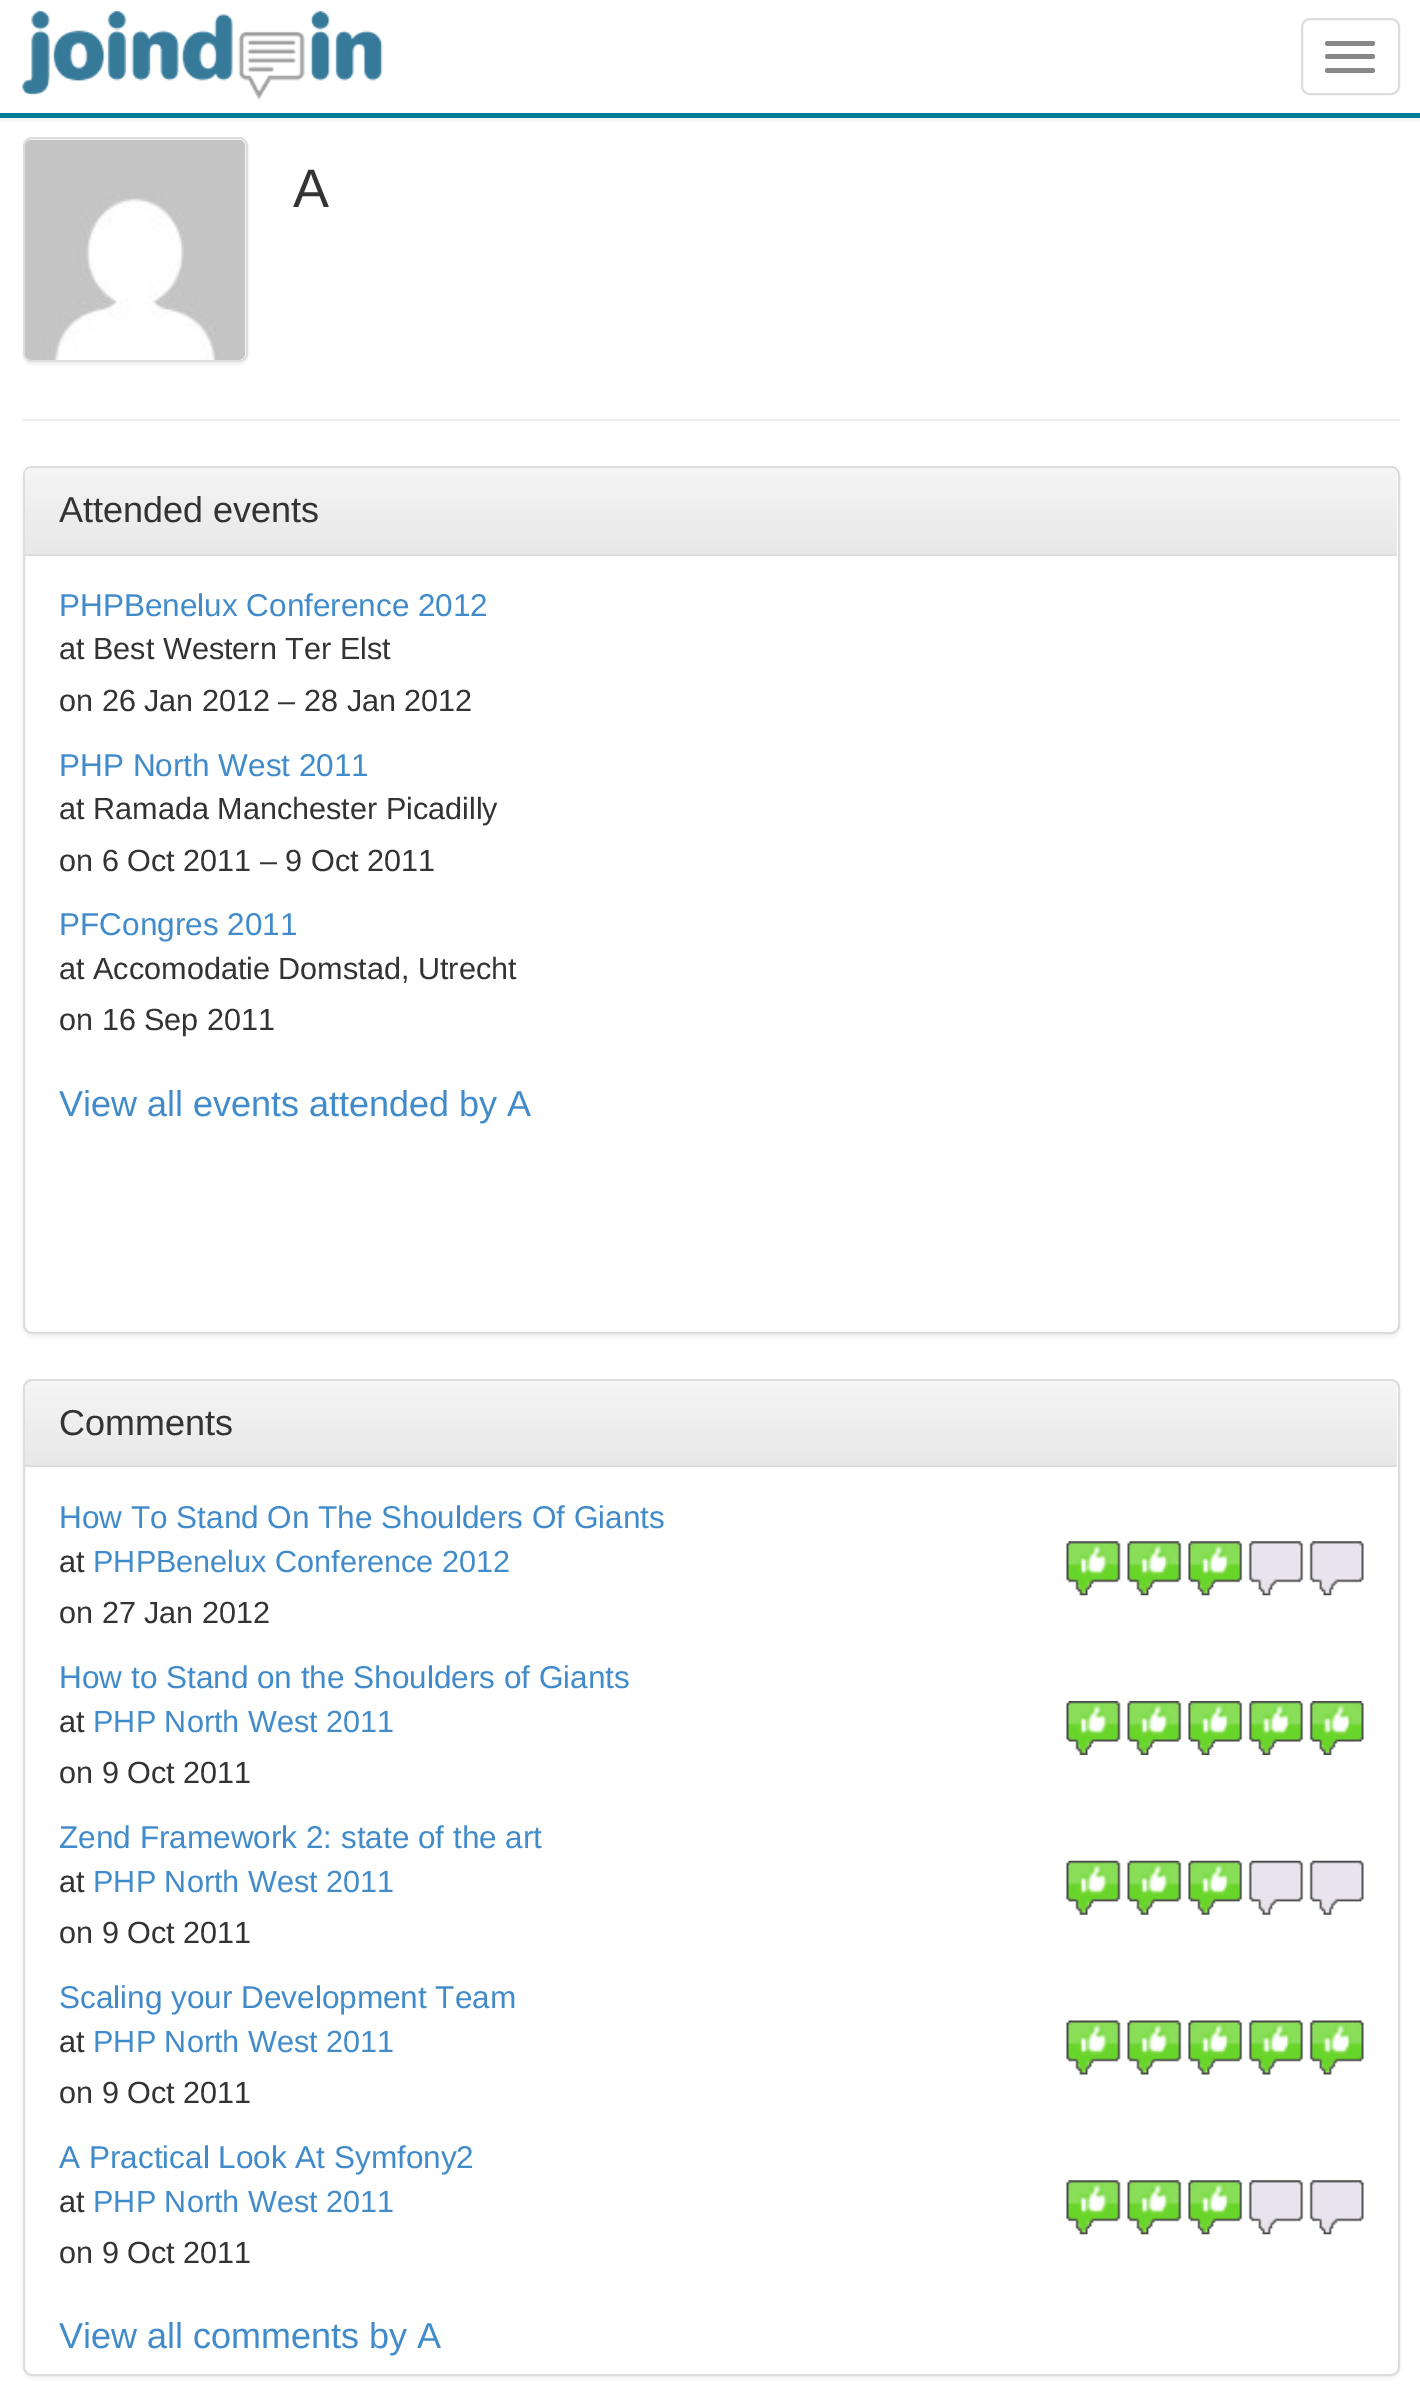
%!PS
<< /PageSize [1420 2400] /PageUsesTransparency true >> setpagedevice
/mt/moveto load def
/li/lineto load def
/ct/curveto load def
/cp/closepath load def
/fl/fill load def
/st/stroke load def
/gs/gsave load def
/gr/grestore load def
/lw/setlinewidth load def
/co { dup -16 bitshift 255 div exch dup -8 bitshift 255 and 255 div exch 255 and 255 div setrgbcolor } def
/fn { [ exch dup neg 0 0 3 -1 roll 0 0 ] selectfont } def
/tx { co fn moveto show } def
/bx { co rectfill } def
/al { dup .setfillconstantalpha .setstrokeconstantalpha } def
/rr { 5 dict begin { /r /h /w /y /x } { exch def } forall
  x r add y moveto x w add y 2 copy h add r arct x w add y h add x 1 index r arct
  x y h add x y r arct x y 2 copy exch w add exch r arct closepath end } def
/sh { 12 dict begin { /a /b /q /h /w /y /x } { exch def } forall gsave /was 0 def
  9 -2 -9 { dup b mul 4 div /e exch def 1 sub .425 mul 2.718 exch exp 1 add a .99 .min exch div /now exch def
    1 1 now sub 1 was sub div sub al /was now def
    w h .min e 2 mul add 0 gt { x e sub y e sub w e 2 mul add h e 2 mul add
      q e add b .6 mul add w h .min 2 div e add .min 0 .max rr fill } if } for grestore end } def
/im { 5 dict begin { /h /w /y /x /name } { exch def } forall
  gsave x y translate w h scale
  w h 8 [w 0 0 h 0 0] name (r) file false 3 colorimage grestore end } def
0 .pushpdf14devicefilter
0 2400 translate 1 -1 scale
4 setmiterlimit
0 0 1420 2400 16#FFFFFF bx
gs
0 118 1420 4 rectclip
16#000000 co
0 2 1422 117 0 5.5 .07 sh
gr
0 113 1420 5 16#007B97 bx
(media/1.raw) 22 11 361 89 im
16#DDDDDD co
2 lw
1302 19 97 75 8 rr st
16#888888 co
1325 41 50 5 2.5 rr fl
1325 54 50 5 2.5 rr fl
1325 68 50 5 2.5 rr fl
23 419 1377 2 16#EEEEEE bx
16#000000 co
23 140 225 225 9 1 .05 sh
16#DDDDDD co
24 138 223 223 8 rr st
(media/2.raw) 25 139 220 221 im
16#000000 co
23 468 1377 869 9 2 .05 sh
16#FFFFFF co
24 467 1375 866 8 rr gs fl gr
16#DDDDDD co
st
gs 32 468 mt 1390 468 li 1394 468 1397 471 1397 475 ct 1397 554 li 25 554 li 25 475 li 25 471 28 468 32 468 ct cp clip newpath
<< /ShadingType 2 /ColorSpace /DeviceRGB /Coords [711 468 711 554] /Extend [true true] /Function << /FunctionType 2 /Domain [0 1] /C0 [.961 .961 .961] /C1 [.91 .91 .91] /N 1 >> >> shfill gr
25 554 1372 2 16#DDDDDD bx
16#000000 co
23 1382 1377 996 9 2 .05 sh
16#FFFFFF co
24 1380 1375 995 8 rr gs fl gr
16#DDDDDD co
st
gs 32 1382 mt 1390 1382 li 1394 1382 1397 1385 1397 1389 ct 1397 1465 li 25 1465 li 25 1389 li 25 1385 28 1382 32 1382 ct cp clip newpath
<< /ShadingType 2 /ColorSpace /DeviceRGB /Coords [711 1382 711 1465] /Extend [true true] /Function << /FunctionType 2 /Domain [0 1] /C0 [.961 .961 .961] /C1 [.91 .91 .91] /N 1 >> >> shfill gr
25 1465 1372 2 16#DDDDDD bx
(media/3.raw) 1066 1541 298 55 im
(media/4.raw) 1066 1701 298 54 im
(media/5.raw) 1066 1860 298 55 im
(media/6.raw) 1066 2020 298 55 im
(media/7.raw) 1066 2180 298 55 im
(A) 293 207 /LiberationSans-Regular 54 16#333333 tx
(Attended events) 59 522 /LiberationSans-Regular 36 16#333333 tx
(PHPBenelux Conference 2012) 59 616 /LiberationSans-Regular 31.5 16#428BCA tx
(at Best Western Ter Elst) 59 659 /LiberationSans-Regular 30.6 16#333333 tx
(on 26 Jan 2012 – 28 Jan 2012) 59 711 /LiberationSans-Regular 30.6 16#333333 tx
(PHP North West 2011) 59 776 /LiberationSans-Regular 31.5 16#428BCA tx
(at Ramada Manchester Picadilly) 59 819 /LiberationSans-Regular 30.6 16#333333 tx
(on 6 Oct 2011 – 9 Oct 2011) 59 871 /LiberationSans-Regular 30.6 16#333333 tx
(PFCongres 2011) 59 935 /LiberationSans-Regular 31.5 16#428BCA tx
(at Accomodatie Domstad, Utrecht) 59 979 /LiberationSans-Regular 30.6 16#333333 tx
(on 16 Sep 2011) 59 1030 /LiberationSans-Regular 30.6 16#333333 tx
(View all events attended by A) 59 1116 /LiberationSans-Regular 36 16#428BCA tx
(Comments) 59 1435 /LiberationSans-Regular 36 16#333333 tx
(How To Stand On The Shoulders Of Giants) 59 1528 /LiberationSans-Regular 31.5 16#428BCA tx
(at) 59 1572 /LiberationSans-Regular 30.6 16#333333 tx
(PHPBenelux Conference 2012) 93 1572 /LiberationSans-Regular 30.6 16#428BCA tx
(on 27 Jan 2012) 59 1623 /LiberationSans-Regular 30.6 16#333333 tx
(How to Stand on the Shoulders of Giants) 59 1688 /LiberationSans-Regular 31.5 16#428BCA tx
(at) 59 1732 /LiberationSans-Regular 30.6 16#333333 tx
(PHP North West 2011) 93 1732 /LiberationSans-Regular 30.6 16#428BCA tx
(on 9 Oct 2011) 59 1783 /LiberationSans-Regular 30.6 16#333333 tx
(Zend Framework 2: state of the art) 59 1848 /LiberationSans-Regular 31.5 16#428BCA tx
(at) 59 1892 /LiberationSans-Regular 30.6 16#333333 tx
(PHP North West 2011) 93 1892 /LiberationSans-Regular 30.6 16#428BCA tx
(on 9 Oct 2011) 59 1943 /LiberationSans-Regular 30.6 16#333333 tx
(Scaling your Development Team) 59 2008 /LiberationSans-Regular 31.5 16#428BCA tx
(at) 59 2052 /LiberationSans-Regular 30.6 16#333333 tx
(PHP North West 2011) 93 2052 /LiberationSans-Regular 30.6 16#428BCA tx
(on 9 Oct 2011) 59 2103 /LiberationSans-Regular 30.6 16#333333 tx
(A Practical Look At Symfony2) 59 2168 /LiberationSans-Regular 31.5 16#428BCA tx
(at) 59 2212 /LiberationSans-Regular 30.6 16#333333 tx
(PHP North West 2011) 93 2212 /LiberationSans-Regular 30.6 16#428BCA tx
(on 9 Oct 2011) 59 2263 /LiberationSans-Regular 30.6 16#333333 tx
(View all comments by A) 59 2348 /LiberationSans-Regular 36 16#428BCA tx
.poppdf14devicefilter showpage
